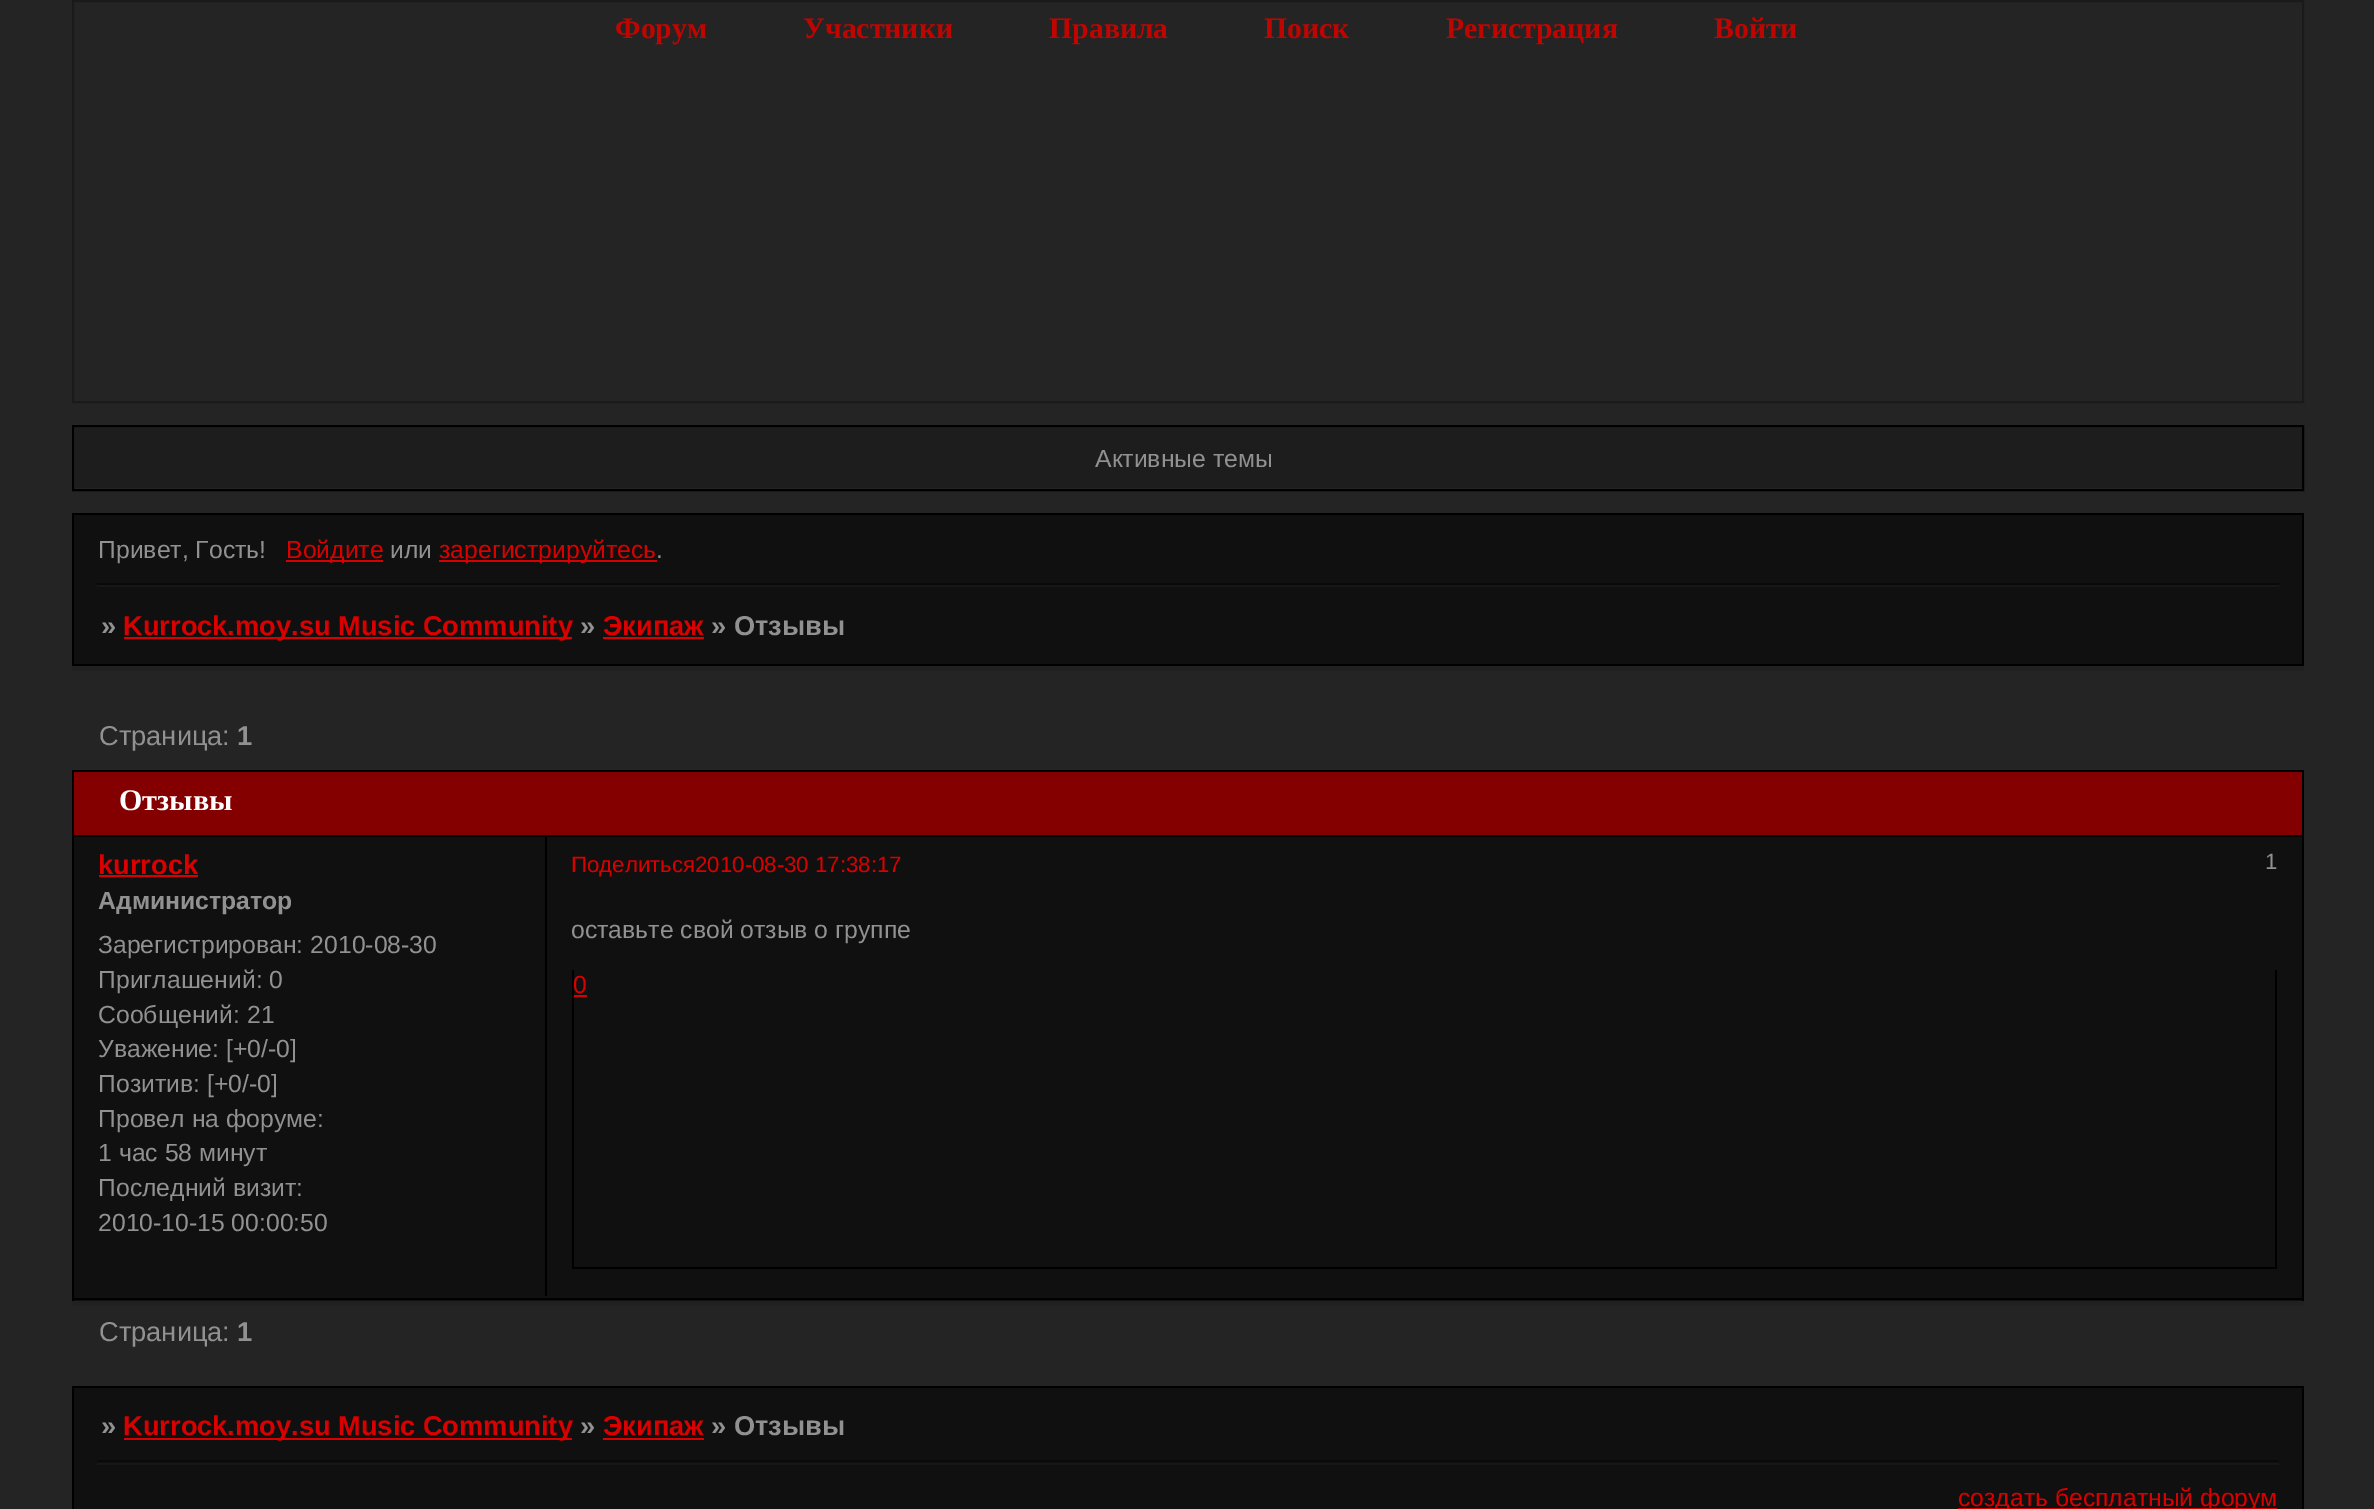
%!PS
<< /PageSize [2374 1509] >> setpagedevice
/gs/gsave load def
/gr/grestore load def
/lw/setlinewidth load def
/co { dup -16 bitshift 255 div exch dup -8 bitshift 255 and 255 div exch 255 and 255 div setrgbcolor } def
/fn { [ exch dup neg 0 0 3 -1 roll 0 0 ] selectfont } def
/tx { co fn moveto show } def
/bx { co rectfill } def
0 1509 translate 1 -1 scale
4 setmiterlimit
0 0 2374 1509 16#242424 bx
16#1A1A1A co
2 lw
73 1 2230 401 rectstroke
16#000000 co
73 426 2230 64 rectstroke
74 428 2228 60 16#1D1D1D bx
74 515 2228 149 16#101010 bx
72 513 2232 2 16#000000 bx
2302 513 2 153 16#000000 bx
72 513 2 74 16#000000 bx
286 560 97 2 16#DA0000 bx
439 560 218 2 16#DA0000 bx
97 583 2182 2 16#0A0A0A bx
97 585 2182 2 16#171717 bx
72 666 2232 5 16#212121 bx
72 664 2232 2 16#000000 bx
72 583 2 83 16#000000 bx
124 637 448 2 16#DA0000 bx
603 637 101 2 16#DA0000 bx
74 772 2228 63 16#840000 bx
72 770 2232 2 16#000000 bx
2302 770 2 65 16#000000 bx
72 770 2 65 16#000000 bx
72 1301 2232 5 16#212121 bx
74 837 2228 50 16#101010 bx
545 837 2 52 16#000000 bx
74 887 2228 414 16#101010 bx
72 835 2232 2 16#000000 bx
2302 835 2 466 16#000000 bx
72 1298 2232 2 16#000000 bx
72 835 2 54 16#000000 bx
72 887 2 414 16#000000 bx
99 875 99 2 16#DA0000 bx
545 887 2 409 16#000000 bx
2275 970 2 299 16#000000 bx
572 1267 1705 2 16#000000 bx
572 970 2 299 16#000000 bx
574 995 13 2 16#DA0000 bx
72 1386 2232 2 16#000000 bx
2302 1460 2 49 16#000000 bx
2302 1386 2 79 16#000000 bx
72 1460 2 49 16#000000 bx
72 1386 2 79 16#000000 bx
74 1388 2228 121 16#101010 bx
124 1438 448 2 16#DA0000 bx
603 1438 101 2 16#DA0000 bx
97 1460 2182 2 16#0A0A0A bx
97 1463 2182 2 16#171717 bx
1958 1508 319 1 16#DA0000 bx
(Форум) 615 38 /LiberationSerif-Bold 29.75 16#C00500 tx
(Участники) 803 38 /LiberationSerif-Bold 29.75 16#C00500 tx
(Правила) 1049 38 /LiberationSerif-Bold 29.75 16#C00500 tx
(Поиск) 1264 38 /LiberationSerif-Bold 29.75 16#C00500 tx
(Регистрация) 1446 38 /LiberationSerif-Bold 29.75 16#C00500 tx
(Войти) 1714 38 /LiberationSerif-Bold 29.75 16#C00500 tx
(Активные темы) 1095 467 /LiberationSans-Regular 24.75 16#919191 tx
(Привет, Гость!) 98 558 /LiberationSans-Regular 24.75 16#919191 tx
(Войдите) 286 558 /LiberationSans-Regular 24.75 16#DA0000 tx
(или) 390 558 /LiberationSans-Regular 24.75 16#919191 tx
(зарегистрируйтесь) 439 558 /LiberationSans-Regular 24.75 16#DA0000 tx
(.) 656 558 /LiberationSans-Regular 24.75 16#919191 tx
(») 101 635 /LiberationSans-Bold 27.25 16#919191 tx
(Kurrock.moy.su Music Community) 123 635 /LiberationSans-Bold 27.25 16#DA0000 tx
(») 580 635 /LiberationSans-Bold 27.25 16#919191 tx
(Экипаж) 603 635 /LiberationSans-Bold 27.25 16#DA0000 tx
(» Отзывы) 711 635 /LiberationSans-Bold 27.25 16#919191 tx
(Страница:) 99 745 /LiberationSans-Regular 27.25 16#919191 tx
(1) 237 745 /LiberationSans-Bold 27.25 16#919191 tx
(Отзывы) 119 810 /LiberationSerif-Bold 30 16#FFFFFF tx
(kurrock) 98 874 /LiberationSans-Bold 27.25 16#DA0000 tx
(Администратор) 98 909 /LiberationSans-Bold 24.75 16#919191 tx
(Зарегистрирован: 2010-08-30) 98 953 /LiberationSans-Regular 24.75 16#919191 tx
(Приглашений: 0) 98 988 /LiberationSans-Regular 24.75 16#919191 tx
(Сообщений: 21) 98 1023 /LiberationSans-Regular 24.75 16#919191 tx
(Уважение: [+0/-0]) 98 1057 /LiberationSans-Regular 24.75 16#919191 tx
(Позитив: [+0/-0]) 98 1092 /LiberationSans-Regular 24.75 16#919191 tx
(Провел на форуме:) 98 1127 /LiberationSans-Regular 24.75 16#919191 tx
(1 час 58 минут) 98 1161 /LiberationSans-Regular 24.75 16#919191 tx
(Последний визит:) 98 1196 /LiberationSans-Regular 24.75 16#919191 tx
(2010-10-15 00:00:50) 98 1231 /LiberationSans-Regular 24.75 16#919191 tx
gs
572 911 1705 61 rectclip
(оставьте свой отзыв о группе) 571 938 /LiberationSans-Regular 24.75 16#919191 tx
gr
(0) 573 993 /LiberationSans-Regular 24.75 16#DA0000 tx
(Поделиться2010-08-30 17:38:17) 571 872 /LiberationSans-Regular 22.25 16#DA0000 tx
(1) 2265 869 /LiberationSans-Regular 22.25 16#919191 tx
(Страница:) 99 1341 /LiberationSans-Regular 27.25 16#919191 tx
(1) 237 1341 /LiberationSans-Bold 27.25 16#919191 tx
(») 101 1435 /LiberationSans-Bold 27.25 16#919191 tx
(Kurrock.moy.su Music Community) 123 1435 /LiberationSans-Bold 27.25 16#DA0000 tx
(») 580 1435 /LiberationSans-Bold 27.25 16#919191 tx
(Экипаж) 603 1435 /LiberationSans-Bold 27.25 16#DA0000 tx
(» Отзывы) 711 1435 /LiberationSans-Bold 27.25 16#919191 tx
(создать бесплатный форум) 1958 1506 /LiberationSans-Regular 24.75 16#DA0000 tx
showpage
